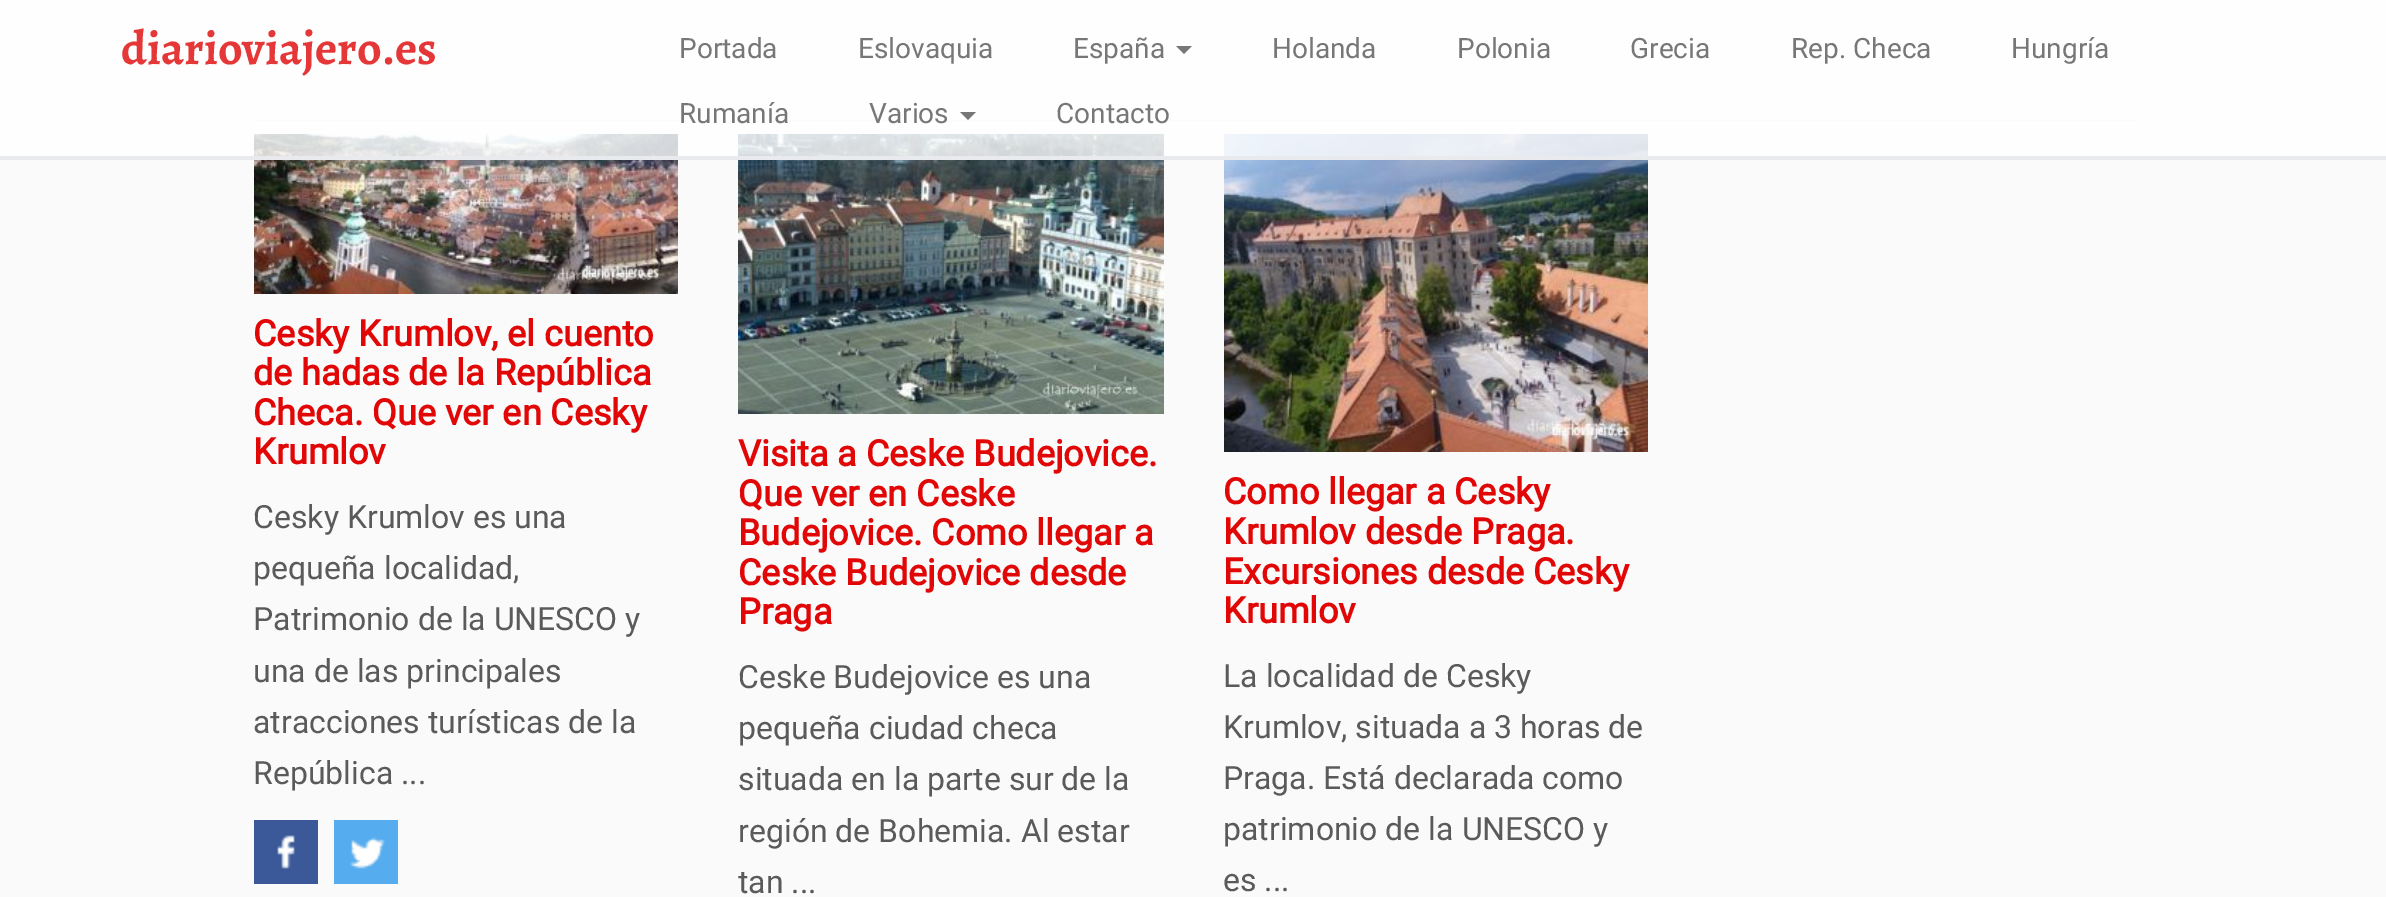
%!PS
<< /PageSize [2386 897] /PageUsesTransparency true >> setpagedevice
/mt/moveto load def
/li/lineto load def
/cp/closepath load def
/fl/fill load def
/co { dup -16 bitshift 255 div exch dup -8 bitshift 255 and 255 div exch 255 and 255 div setrgbcolor } def
/fn { [ exch dup neg 0 0 3 -1 roll 0 0 ] selectfont } def
/tx { co fn moveto show } def
/bx { co rectfill } def
/al { dup .setfillconstantalpha .setstrokeconstantalpha } def
/im { 5 dict begin { /h /w /y /x /name } { exch def } forall
  gsave x y translate w h scale
  w h 8 [w 0 0 h 0 0] name (r) file false 3 colorimage grestore end } def
0 .pushpdf14devicefilter
0 897 translate 1 -1 scale
4 setmiterlimit
0 0 2386 897 16#FAFAFA bx
254 120 1880 2 16#EEEEEE bx
254 122 1880 2 16#FFFFFF bx
(media/1.raw) 254 134 424 160 im
(media/4.raw) 738 134 426 280 im
(media/5.raw) 1224 134 424 318 im
0.8 al
0 0 2386 156 16#FFFFFF bx
1 al
0 156 2386 4 16#E9EAEE bx
16#777777 co
1176 46 mt 1192 46 li 1184 54 li cp fl
960 112 mt 976 112 li 968 120 li cp fl
(media/2.raw) 254 820 64 64 im
(media/3.raw) 334 820 64 64 im
(diarioviajero.es) 121 64 /Alegreya-Bold 48 16#E53737 tx
(Portada) 679 58 /Roboto-Regular 28 16#777777 tx
(Eslovaquia) 858 58 /Roboto-Regular 28 16#777777 tx
(España) 1073 58 /Roboto-Regular 28 16#777777 tx
(Holanda) 1272 58 /Roboto-Regular 28 16#777777 tx
(Polonia) 1457 58 /Roboto-Regular 28 16#777777 tx
(Grecia) 1630 58 /Roboto-Regular 28 16#777777 tx
(Rep. Checa) 1791 58 /Roboto-Regular 28 16#777777 tx
(Hungría) 2011 58 /Roboto-Regular 28 16#777777 tx
(Rumanía) 679 123 /Roboto-Regular 28 16#777777 tx
(Varios) 869 123 /Roboto-Regular 28 16#777777 tx
(Contacto) 1056 123 /Roboto-Regular 28 16#777777 tx
(Cesky Krumlov, el cuento) 253 346 /Roboto-Bold 36 16#E10707 tx
(de hadas de la República) 253 385 /Roboto-Bold 36 16#E10707 tx
(Checa. Que ver en Cesky) 253 425 /Roboto-Bold 36 16#E10707 tx
(Krumlov) 253 464 /Roboto-Bold 36 16#E10707 tx
(Cesky Krumlov es una) 253 528 /Roboto-Regular 32 16#5A5A5A tx
(pequeña localidad,) 253 579 /Roboto-Regular 32 16#5A5A5A tx
(Patrimonio de la UNESCO y) 253 630 /Roboto-Regular 32 16#5A5A5A tx
(una de las principales) 253 682 /Roboto-Regular 32 16#5A5A5A tx
(atracciones turísticas de la) 253 733 /Roboto-Regular 32 16#5A5A5A tx
(República ...) 253 784 /Roboto-Regular 32 16#5A5A5A tx
(Visita a Ceske Budejovice.) 738 466 /Roboto-Bold 36 16#E10707 tx
(Que ver en Ceske) 738 506 /Roboto-Bold 36 16#E10707 tx
(Budejovice. Como llegar a) 738 545 /Roboto-Bold 36 16#E10707 tx
(Ceske Budejovice desde) 738 585 /Roboto-Bold 36 16#E10707 tx
(Praga) 738 624 /Roboto-Bold 36 16#E10707 tx
(Ceske Budejovice es una) 738 688 /Roboto-Regular 32 16#5A5A5A tx
(pequeña ciudad checa) 738 739 /Roboto-Regular 32 16#5A5A5A tx
(situada en la parte sur de la) 738 790 /Roboto-Regular 32 16#5A5A5A tx
(región de Bohemia. Al estar) 738 842 /Roboto-Regular 32 16#5A5A5A tx
(tan ...) 738 893 /Roboto-Regular 32 16#5A5A5A tx
(Como llegar a Cesky) 1223 504 /Roboto-Bold 36 16#E10707 tx
(Krumlov desde Praga.) 1223 544 /Roboto-Bold 36 16#E10707 tx
(Excursiones desde Cesky) 1223 584 /Roboto-Bold 36 16#E10707 tx
(Krumlov) 1223 623 /Roboto-Bold 36 16#E10707 tx
(La localidad de Cesky) 1223 687 /Roboto-Regular 32 16#5A5A5A tx
(Krumlov, situada a 3 horas de) 1223 738 /Roboto-Regular 32 16#5A5A5A tx
(Praga. Está declarada como) 1223 789 /Roboto-Regular 32 16#5A5A5A tx
(patrimonio de la UNESCO y) 1223 840 /Roboto-Regular 32 16#5A5A5A tx
(es ...) 1223 891 /Roboto-Regular 32 16#5A5A5A tx
.poppdf14devicefilter showpage
